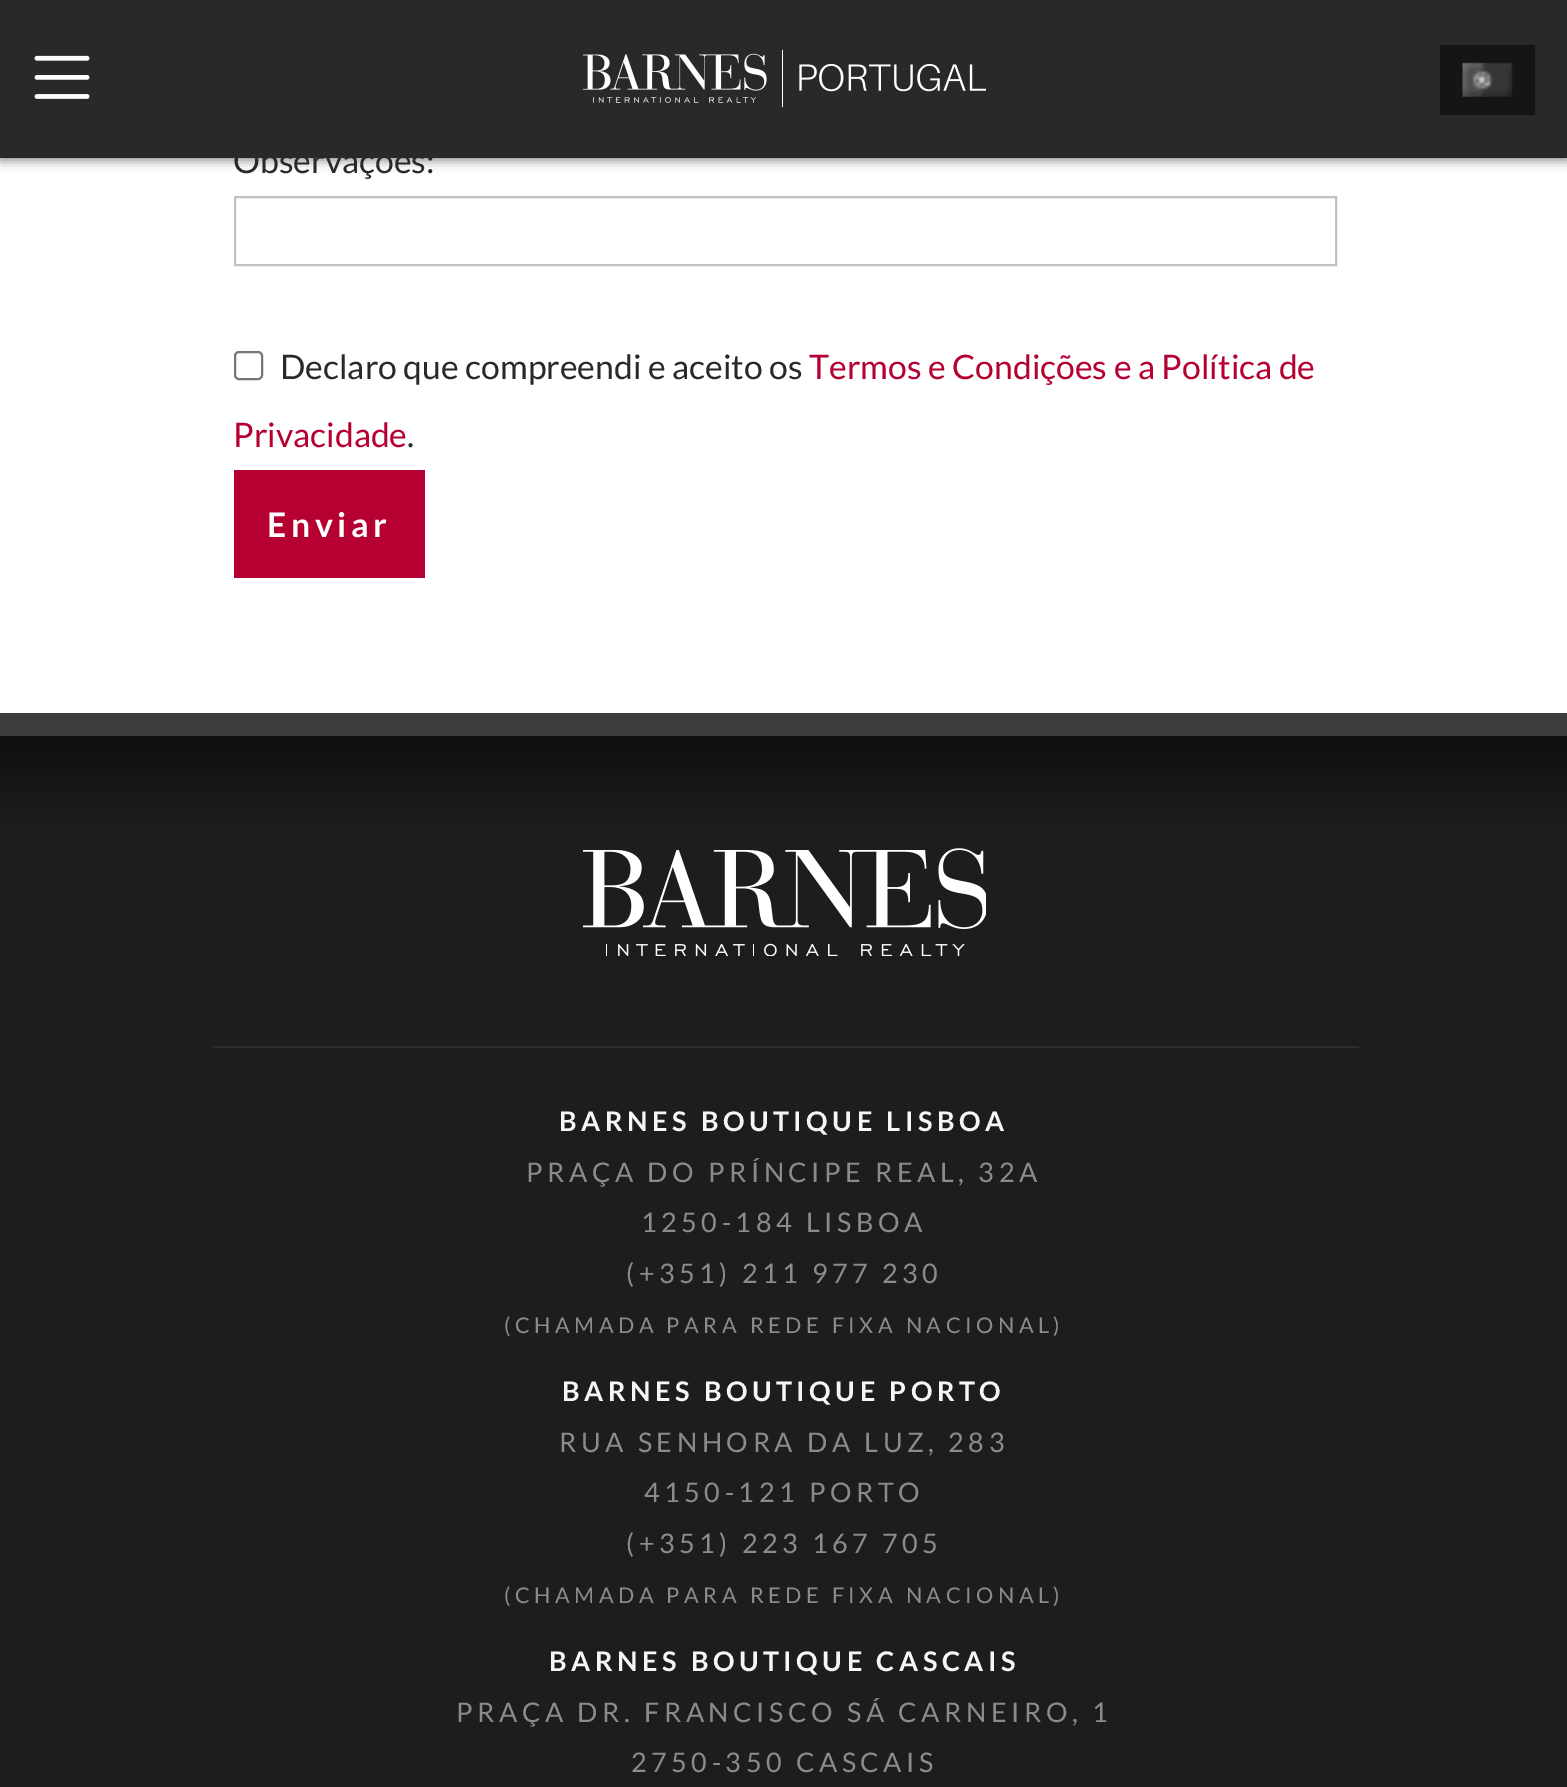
%!PS
<< /PageSize [1567 1787] /PageUsesTransparency true >> setpagedevice
/mt/moveto load def
/li/lineto load def
/cp/closepath load def
/st/stroke load def
/gs/gsave load def
/gr/grestore load def
/lw/setlinewidth load def
/co { dup -16 bitshift 255 div exch dup -8 bitshift 255 and 255 div exch 255 and 255 div setrgbcolor } def
/fn { [ exch dup neg 0 0 3 -1 roll 0 0 ] selectfont } def
/tx { co fn moveto show } def
/bx { co rectfill } def
/al { dup .setfillconstantalpha .setstrokeconstantalpha } def
/rr { 5 dict begin { /r /h /w /y /x } { exch def } forall
  x r add y moveto x w add y 2 copy h add r arct x w add y h add x 1 index r arct
  x y h add x y r arct x y 2 copy exch w add exch r arct closepath end } def
/sh { 12 dict begin { /a /b /q /h /w /y /x } { exch def } forall gsave /was 0 def
  9 -2 -9 { dup b mul 4 div /e exch def 1 sub .425 mul 2.718 exch exp 1 add a .99 .min exch div /now exch def
    1 1 now sub 1 was sub div sub al /was now def
    w h .min e 2 mul add 0 gt { x e sub y e sub w e 2 mul add h e 2 mul add
      q e add b .6 mul add w h .min 2 div e add .min 0 .max rr fill } if } for grestore end } def
/im { 5 dict begin { /h /w /y /x /name } { exch def } forall
  gsave x y translate w h scale
  w h 8 [w 0 0 h 0 0] name (r) file false 3 colorimage grestore end } def
0 .pushpdf14devicefilter
0 1787 translate 1 -1 scale
4 setmiterlimit
0 0 1567 1787 16#FFFFFF bx
16#000000 co
0 2 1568 158 0 5.5 .5 sh
0 0 1567 158 16#292929 bx
(media/1.raw) 34 55 56 44 im
(media/2.raw) 583 50 403 57 im
1440 45 95 70 16#151515 bx
(media/3.raw) 1462 62 51 35 im
16#C1C1C1 co
2 lw
235 197 1101 68 rectstroke
16#767676 co
235 352 27 27 4 rr st
234 470 191 108 16#B60032 bx
0 826 1567 961 16#1D1D1D bx
0 713 1567 23 16#3C3C3C bx
gs 0 736 mt 1567 736 li 1567 826 li 0 826 li cp clip newpath
<< /ShadingType 2 /ColorSpace /DeviceRGB /Coords [784 736 784 826] /Extend [true true] /Function << /FunctionType 2 /Domain [0 1] /C0 [.059 .059 .059] /C1 [.114 .114 .114] /N 1 >> >> shfill gr
(media/4.raw) 583 848 403 108 im
212 1046 1147 2 16#2C2C2C bx
(Observações:) 233 173 /Lato-Regular 33.75 16#292929 tx
(Declaro que compreendi e aceito os) 280 379 /Lato-Regular 33.75 16#292929 tx
(Termos e Condições e a Política de) 809 379 /Lato-Regular 33.75 16#B60032 tx
(Privacidade) 233 447 /Lato-Regular 33.75 16#B60032 tx
(.) 407 447 /Lato-Regular 33.75 16#292929 tx
/Lato-Bold 33.75 fn
16#FFFFFF co
267 537 mt 4.5 0 (Enviar) ashow
/Lato-Bold 27 fn
16#F6F6F6 co
559 1131 mt 4.5 0 (BARNES BOUTIQUE LISBOA) ashow
/Lato-Regular 27 fn
16#8B8B8B co
526 1182 mt 4.5 0 (PRAÇA DO PRÍNCIPE REAL, 32A) ashow
641 1232 mt 4.5 0 (1250-184 LISBOA) ashow
626 1283 mt 4.5 0 (\(+351\) 211 977 230) ashow
/Lato-Regular 21.6 fn
504 1333 mt 4.5 0 (\(CHAMADA PARA REDE FIXA NACIONAL\)) ashow
/Lato-Bold 27 fn
16#F6F6F6 co
562 1401 mt 4.5 0 (BARNES BOUTIQUE PORTO) ashow
/Lato-Regular 27 fn
16#8B8B8B co
559 1452 mt 4.5 0 (RUA SENHORA DA LUZ, 283) ashow
644 1502 mt 4.5 0 (4150-121 PORTO) ashow
626 1553 mt 4.5 0 (\(+351\) 223 167 705) ashow
/Lato-Regular 21.6 fn
504 1603 mt 4.5 0 (\(CHAMADA PARA REDE FIXA NACIONAL\)) ashow
/Lato-Bold 27 fn
16#F6F6F6 co
549 1671 mt 4.5 0 (BARNES BOUTIQUE CASCAIS) ashow
/Lato-Regular 27 fn
16#8B8B8B co
456 1722 mt 4.5 0 (PRAÇA DR. FRANCISCO SÁ CARNEIRO, 1) ashow
631 1772 mt 4.5 0 (2750-350 CASCAIS) ashow
.poppdf14devicefilter showpage
